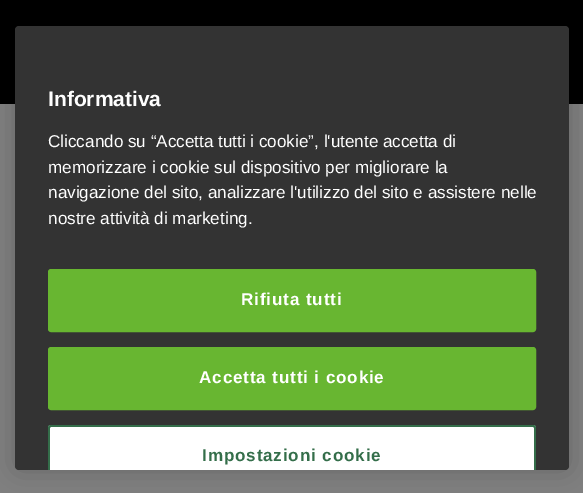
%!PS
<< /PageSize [583 493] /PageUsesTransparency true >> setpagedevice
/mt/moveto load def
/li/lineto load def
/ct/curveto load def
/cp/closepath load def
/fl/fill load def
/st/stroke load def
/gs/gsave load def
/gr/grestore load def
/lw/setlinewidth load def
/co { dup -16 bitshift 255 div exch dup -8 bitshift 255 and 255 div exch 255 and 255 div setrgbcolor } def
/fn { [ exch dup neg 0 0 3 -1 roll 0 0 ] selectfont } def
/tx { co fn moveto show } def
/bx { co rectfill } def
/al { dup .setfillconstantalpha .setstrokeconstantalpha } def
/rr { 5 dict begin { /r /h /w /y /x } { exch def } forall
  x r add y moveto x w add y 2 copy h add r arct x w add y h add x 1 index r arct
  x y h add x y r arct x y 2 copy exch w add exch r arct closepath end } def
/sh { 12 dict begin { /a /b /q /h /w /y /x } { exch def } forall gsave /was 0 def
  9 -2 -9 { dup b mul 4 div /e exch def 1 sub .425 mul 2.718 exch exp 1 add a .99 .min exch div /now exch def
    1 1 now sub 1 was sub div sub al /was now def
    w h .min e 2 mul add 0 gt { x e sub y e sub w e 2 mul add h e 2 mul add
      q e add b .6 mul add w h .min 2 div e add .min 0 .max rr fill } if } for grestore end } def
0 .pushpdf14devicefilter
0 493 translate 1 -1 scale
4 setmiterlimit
0 0 583 493 16#808080 bx
0 0 583 104 16#000000 bx
15 26 554 444 4 13.5 .2 sh
16#333333 co
15 26 554 444 4 rr fl
16#68B631 co
49 270 486 61 2 rr gs fl gr
2 lw
st
49 348 486 61 2 rr gs fl gr
st
16#FFFFFF co
51 425 mt 533 425 li 534.5 425 536 426.5 536 428 ct 536 470 li 48 470 li 48 428 li 48 426.5 49.5 425 51 425 ct cp fl
16#346E4A co
51 425 mt 49 425 48 426 48 428 ct 48 470 li 50 470 li 50 428 li 50 427 50 427 51 427 ct 533 427 li 534 427 534 427 534 428 ct 534 470 li 536 470 li 536 428 li 536 426 535 425 533 425 ct cp fl
(Informativa) 48 106 /LiberationSans-Bold 21 16#FFFFFF tx
(Cliccando su “Accetta tutti i cookie”, l'utente accetta di) 48 147 /LiberationSans-Regular 17.1 16#FFFFFF tx
(memorizzare i cookie sul dispositivo per migliorare la) 48 173 /LiberationSans-Regular 17.1 16#FFFFFF tx
(navigazione del sito, analizzare l'utilizzo del sito e assistere nelle) 48 198 /LiberationSans-Regular 17.1 16#FFFFFF tx
(nostre attività di marketing.) 48 224 /LiberationSans-Regular 17.1 16#FFFFFF tx
/LiberationSans-Bold 17.1 fn
241 305 mt .85 0 (Rifiuta tutti) ashow
199 383 mt .85 0 (Accetta tutti i cookie) ashow
16#346E4A co
202 461 mt .85 0 (Impostazioni cookie) ashow
.poppdf14devicefilter showpage
